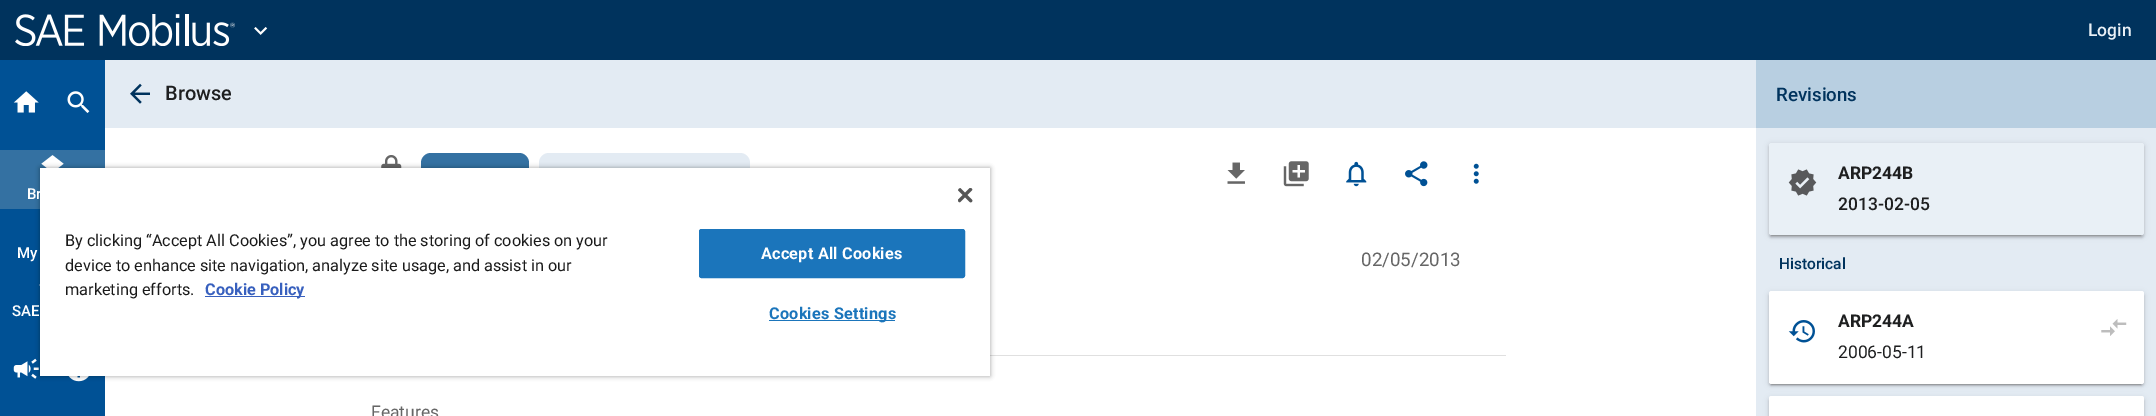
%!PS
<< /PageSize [2156 416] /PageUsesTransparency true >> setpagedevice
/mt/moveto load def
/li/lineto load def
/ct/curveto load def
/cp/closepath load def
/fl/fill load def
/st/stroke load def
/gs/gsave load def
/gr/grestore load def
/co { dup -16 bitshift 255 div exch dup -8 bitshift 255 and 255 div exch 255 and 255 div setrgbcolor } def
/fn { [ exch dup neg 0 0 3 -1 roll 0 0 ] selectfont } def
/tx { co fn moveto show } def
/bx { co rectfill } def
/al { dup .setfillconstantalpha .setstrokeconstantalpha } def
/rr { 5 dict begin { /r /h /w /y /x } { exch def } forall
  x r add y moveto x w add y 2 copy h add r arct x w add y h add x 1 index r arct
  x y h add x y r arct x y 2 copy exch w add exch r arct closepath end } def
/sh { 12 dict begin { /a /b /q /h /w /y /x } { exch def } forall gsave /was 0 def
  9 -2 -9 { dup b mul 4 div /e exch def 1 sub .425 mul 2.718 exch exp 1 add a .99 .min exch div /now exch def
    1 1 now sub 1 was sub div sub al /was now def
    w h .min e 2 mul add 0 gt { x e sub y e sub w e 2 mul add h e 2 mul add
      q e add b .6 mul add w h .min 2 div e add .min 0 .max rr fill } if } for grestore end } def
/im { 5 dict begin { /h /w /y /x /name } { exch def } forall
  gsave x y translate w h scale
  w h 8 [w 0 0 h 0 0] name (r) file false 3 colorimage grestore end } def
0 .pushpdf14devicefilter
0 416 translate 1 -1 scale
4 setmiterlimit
0 0 2156 416 16#FFFFFF bx
0 0 2156 60 16#00335D bx
(media/1.raw) 15 14 220 32 im
(media/2.raw) 254 27 14 8 im
0 60 105 356 16#005195 bx
(media/3.raw) 13 91 26 22 im
(media/4.raw) 67 91 23 22 im
0 150 105 59 16#3471A2 bx
(media/5.raw) 41 155 23 13 im
(media/6.raw) 39 284 1 2 im
(media/7.raw) 13 358 26 21 im
(media/8.raw) 68 376 21 6 im
105 60 1651 68 16#E3EBF3 bx
(media/9.raw) 130 83 20 21 im
(media/10.raw) 381 155 21 13 im
16#3471A2 co
421 153 108 31 10 rr fl
16#E3EBF3 co
539 153 211 31 10 rr fl
(media/11.raw) 1227 162 18 22 im
(media/12.raw) 1283 161 26 26 im
(media/13.raw) 1346 161 21 26 im
(media/14.raw) 1405 161 23 26 im
(media/15.raw) 1473 163 6 21 im
990 355 516 1 16#E0E0E0 bx
1756 128 400 288 16#E3EBF3 bx
1756 60 400 68 16#B8CFE1 bx
16#000000 co
1769 144 375 92 2.5 3 .12 sh
1769 145 375 93 2.5 1 .14 sh
1771 149 370 87 0 .5 .2 sh
16#E9F0F6 co
1769 143 375 92 2.5 rr fl
1769 144 1 90 16#E9F0F6 bx
(media/16.raw) 1788 169 29 27 im
16#000000 co
1769 293 375 92 2.5 3 .12 sh
1769 294 375 92 2.5 1 .14 sh
1771 298 370 87 0 .5 .2 sh
16#FFFFFF co
1769 291 375 93 2.5 rr fl
1769 382 1 1 16#FFFFFF bx
(media/17.raw) 1788 320 27 23 im
(media/18.raw) 2101 319 26 17 im
16#000000 co
1769 398 375 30 2.5 3 .12 sh
1769 399 375 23 2.5 1 .14 sh
16#FFFFFF co
1771.5 396 mt 2141.5 396 li 2143 396 2144 397 2144 398.5 ct 2144 416 li 1769 416 li 1769 398.5 li 1769 397 1770 396 1771.5 396 ct cp fl
16#000000 co
40 168 950 208 0 2.5 .35 sh
40 168 950 208 16#FFFFFF bx
(media/19.raw) 958 188 15 15 im
205 296 100 1 16#3860BE bx
16#1B75BB co
699.5 229.5 265 48 2 rr gs fl gr
st
769 320 126 1 16#1B75BB bx
(Login) 2088 36 /Roboto-Medium 17.5 16#E9F0F6 tx
(Br) 27 199 /Roboto-Medium 15 16#FFFFFF tx
(My) 17 258 /Roboto-Medium 15 16#FFFFFF tx
(SAE) 12 316 /Roboto-Medium 15 16#FFFFFF tx
(Browse) 165 100 /Roboto-Medium 20 16#1E1F20 tx
(02/05/2013) 1361 266 /Roboto-Regular 18.75 16#666666 tx
(Features) 371 418 /Roboto-Regular 17.5 16#666666 tx
(Revisions) 1776 101 /Roboto-Medium 18.75 16#00335D tx
(ARP244B) 1838 179 /Roboto-Bold 17.5 16#1E1F20 tx
(2013-02-05) 1838 210 /Roboto-Medium 17.5 16#1E1F20 tx
(Historical) 1779 269 /Roboto-Medium 15.5 16#00335D tx
(ARP244A) 1838 327 /Roboto-Bold 17.5 16#1E1F20 tx
(2006-05-11) 1838 358 /Roboto-Regular 17.5 16#1E1F20 tx
(By clicking “Accept All Cookies”, you agree to the storing of cookies on your) 65 246 /Roboto-Regular 16.25 16#1A1A1A tx
(device to enhance site navigation, analyze site usage, and assist in our) 65 271 /Roboto-Regular 16.25 16#1A1A1A tx
(marketing efforts.) 65 295 /Roboto-Regular 16.25 16#1A1A1A tx
(Cookie Policy) 205 295 /Roboto-Bold 16.25 16#3860BE tx
16#FFFFFF co
761 259 mt .2 0 (Accept All Cookies) ashow
16#1B75BB co
769 319 mt .2 0 (Cookies Settings) ashow
.poppdf14devicefilter showpage
